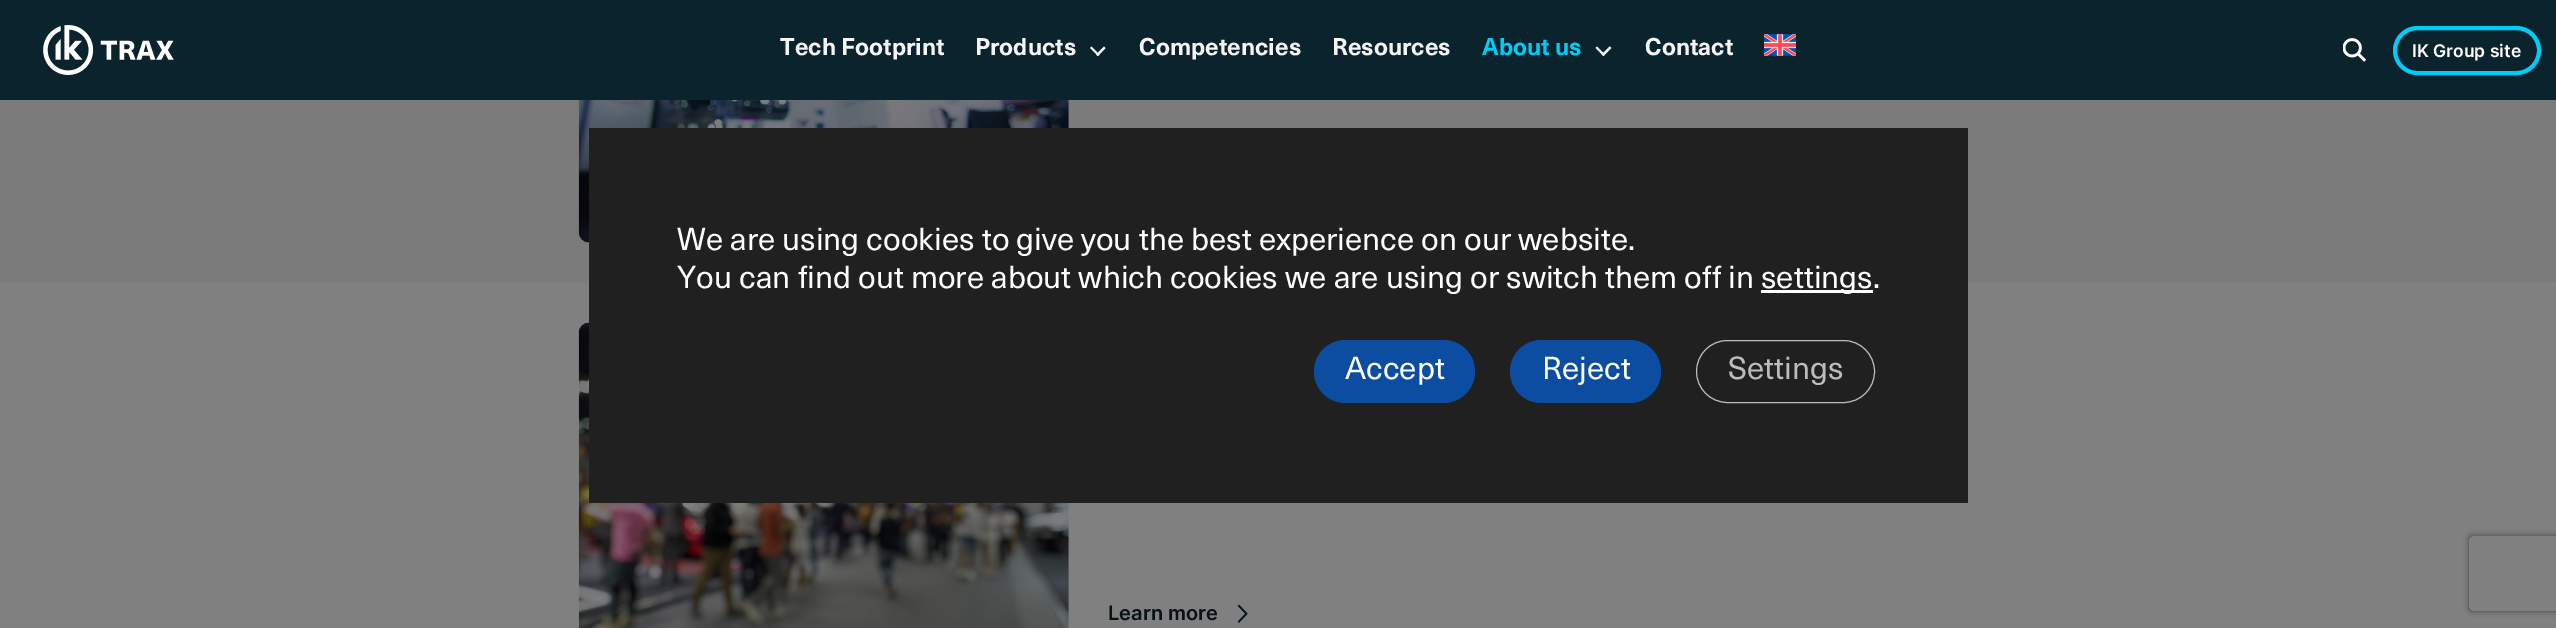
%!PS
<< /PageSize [2556 628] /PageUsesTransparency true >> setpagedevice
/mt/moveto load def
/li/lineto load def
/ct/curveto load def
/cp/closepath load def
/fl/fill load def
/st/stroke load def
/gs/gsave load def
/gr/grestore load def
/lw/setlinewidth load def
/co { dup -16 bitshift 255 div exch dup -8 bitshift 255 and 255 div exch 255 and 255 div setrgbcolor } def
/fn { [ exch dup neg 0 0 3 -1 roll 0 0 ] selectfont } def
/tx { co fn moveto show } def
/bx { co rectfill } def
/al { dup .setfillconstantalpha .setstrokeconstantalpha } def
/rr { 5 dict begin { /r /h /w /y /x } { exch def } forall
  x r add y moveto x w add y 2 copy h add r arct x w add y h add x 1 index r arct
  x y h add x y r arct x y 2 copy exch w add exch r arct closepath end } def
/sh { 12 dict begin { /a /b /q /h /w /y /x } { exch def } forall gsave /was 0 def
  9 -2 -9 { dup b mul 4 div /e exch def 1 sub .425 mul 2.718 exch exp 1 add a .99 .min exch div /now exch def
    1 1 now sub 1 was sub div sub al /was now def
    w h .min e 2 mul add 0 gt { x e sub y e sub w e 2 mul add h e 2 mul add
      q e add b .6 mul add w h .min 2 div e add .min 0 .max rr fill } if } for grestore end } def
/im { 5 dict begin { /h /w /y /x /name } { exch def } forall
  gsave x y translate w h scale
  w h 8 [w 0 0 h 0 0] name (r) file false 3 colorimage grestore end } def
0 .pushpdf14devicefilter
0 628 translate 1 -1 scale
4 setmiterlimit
0 0 2556 628 16#808080 bx
0 0 2556 100 16#0B232C bx
(media/1.raw) 43 25 131 50 im
16#F5F5F5 co
1096 54.5 mt 1104 46.5 li 1105.5 48 li 1098 56 li cp fl
1090 48 mt 1091.5 46.5 li 1099.5 54.5 li 1098 56 li cp fl
1601.5 54.5 mt 1609.5 46.5 li 1611.5 48 li 1603.5 56 li cp fl
1595.5 48 mt 1597 46.5 li 1605 54.5 li 1603.5 56 li cp fl
(media/2.raw) 1764 34 32 22 im
(media/3.raw) 2343 38 23 24 im
16#00CDF6 co
4 lw
2395 28 144 45 22.5 rr st
0 100 2556 183 16#7B7B7B bx
(media/4.raw) 578 100 491 143 im
(media/5.raw) 578 322 491 306 im
589 128 1379 375 16#202020 bx
1761 290 112 3 16#FFFFFF bx
16#0C4DA2 co
1314 340 161 63 31.5 rr fl
1510 340 151 63 31.5 rr fl
16#BCBCBC co
1 lw
1696.5 340.5 178 62 31 rr st
(media/6.raw) 1238 604 10 19 im
gs
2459 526 mt 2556 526 li 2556 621 li 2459 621 li cp 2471.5 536 mt 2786.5 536 li 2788 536 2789 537 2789 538.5 ct 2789 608.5 li 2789 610 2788 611 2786.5 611 ct 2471.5 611 li 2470 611 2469 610 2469 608.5 ct 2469 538.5 li 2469 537 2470 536 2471.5 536 ct cp eoclip newpath
16#404040 co
2469 536 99 75 2.5 3 1 sh
gr
(Tech Footprint) 780 55 /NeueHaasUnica-Bold 23.75 16#F5F5F5 tx
(Products) 975 55 /NeueHaasUnica-Bold 23.75 16#F5F5F5 tx
(Competencies) 1139 55 /NeueHaasUnica-Bold 23.75 16#F5F5F5 tx
(Resources) 1332 55 /NeueHaasUnica-Bold 23.75 16#F5F5F5 tx
(About us) 1482 55 /NeueHaasUnica-Bold 23.75 16#00CDF6 tx
(Contact) 1645 55 /NeueHaasUnica-Bold 23.75 16#F5F5F5 tx
(IK Group site) 2412 57 /Inter-SemiBold 17.5 16#FFFFFF tx
(We are using cookies to give you the best experience on our website.) 677 250 /NeueHaasUnica-Regular 31.25 16#FFFFFF tx
(You can find out more about which cookies we are using or switch them off in) 677 288 /NeueHaasUnica-Regular 31.25 16#FFFFFF tx
(settings.) 1761 288 /NeueHaasUnica-Regular 31.25 16#FFFFFF tx
(Accept) 1345 379 /NeueHaasUnica-Regular 31.25 16#FFFFFF tx
(Reject) 1542 379 /NeueHaasUnica-Regular 31.25 16#FFFFFF tx
(Settings) 1728 379 /NeueHaasUnica-Regular 31.25 16#BCBCBC tx
(Learn more) 1108 620 /Inter-SemiBold 20 16#061216 tx
.poppdf14devicefilter showpage
